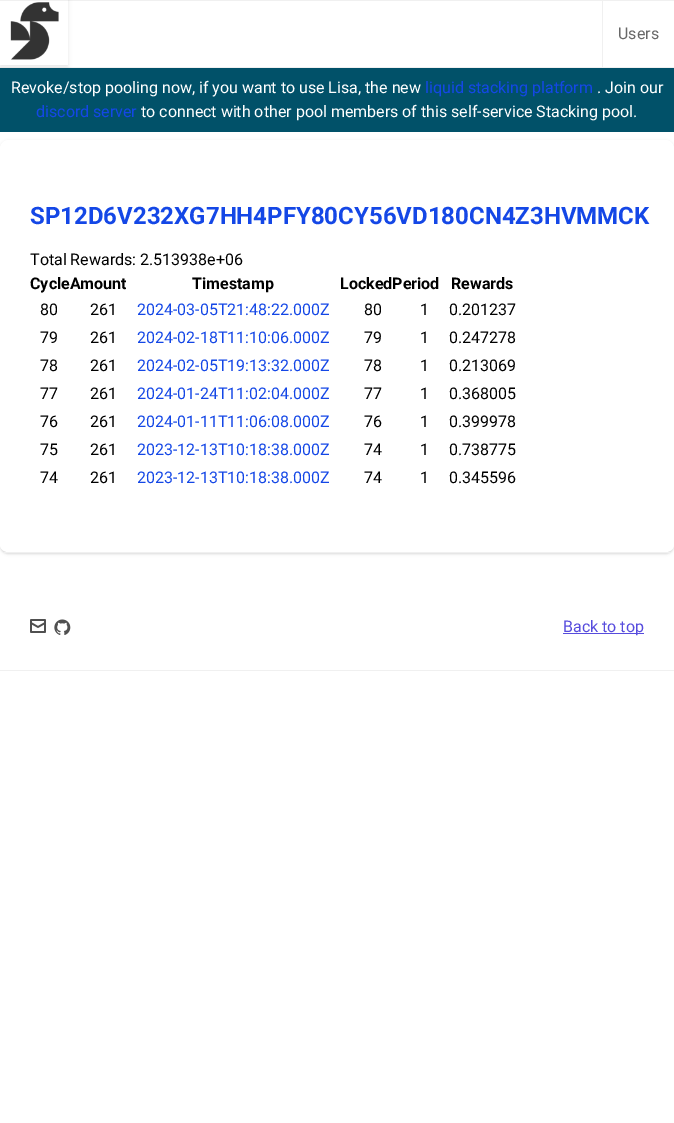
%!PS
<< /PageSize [674 1123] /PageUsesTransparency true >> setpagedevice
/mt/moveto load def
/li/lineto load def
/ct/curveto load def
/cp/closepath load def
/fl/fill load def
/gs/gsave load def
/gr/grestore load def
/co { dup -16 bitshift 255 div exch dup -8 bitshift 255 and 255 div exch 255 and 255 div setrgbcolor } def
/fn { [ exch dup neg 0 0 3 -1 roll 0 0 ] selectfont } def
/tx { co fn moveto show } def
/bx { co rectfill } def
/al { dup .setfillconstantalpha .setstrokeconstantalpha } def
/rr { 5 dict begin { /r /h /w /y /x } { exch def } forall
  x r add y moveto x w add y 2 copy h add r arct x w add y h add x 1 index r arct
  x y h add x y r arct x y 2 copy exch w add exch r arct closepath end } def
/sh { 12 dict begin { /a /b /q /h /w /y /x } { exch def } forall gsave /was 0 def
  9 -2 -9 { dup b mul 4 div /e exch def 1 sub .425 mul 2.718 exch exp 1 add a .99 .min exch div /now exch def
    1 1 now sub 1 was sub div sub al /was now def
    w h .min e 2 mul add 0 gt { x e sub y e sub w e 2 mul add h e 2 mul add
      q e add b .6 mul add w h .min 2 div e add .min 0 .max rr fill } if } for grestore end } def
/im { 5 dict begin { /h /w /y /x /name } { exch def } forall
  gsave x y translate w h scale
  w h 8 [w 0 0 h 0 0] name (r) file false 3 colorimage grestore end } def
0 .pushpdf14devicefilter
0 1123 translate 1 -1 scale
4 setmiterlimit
0 0 674 1123 16#FFFFFF bx
0 0 674 1 16#F0F0F0 bx
0 67 674 1 16#F0F0F0 bx
0 68 674 64 16#015169 bx
gs
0 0 mt 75 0 li 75 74 li 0 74 li cp 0 -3 mt 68 -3 li 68 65 li 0 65 li cp eoclip newpath
16#000000 co
0 -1 68 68 0 2 .1 sh
gr
(media/1.raw) 10 2 49 58 im
602 0 1 68 16#F0F0F0 bx
16#000000 co
1 142 672 411 7 1 .1 sh
0 141 674 413 8 1.5 .1 sh
16#FFFFFF co
8 140 mt 666 140 li 670 140 674 144 674 148 ct 674 545 li 674 549 670 552 666 552 ct 8 552 li 4 552 0 549 0 545 ct 0 148 li 0 144 4 140 8 140 ct cp fl
4 552 666 1 16#F0F0F0 bx
0 670 674 1 16#F0F0F0 bx
(media/2.raw) 30 619 16 14 im
(media/3.raw) 54 619 17 16 im
563 633 81 1 16#574CDD bx
(Users) 618 39 /Roboto-Regular 16 16#686868 tx
(Revoke/stop pooling now, if you want to use Lisa, the new) 11 93 /Roboto-Regular 16 16#FFFFFF tx
(liquid stacking platform) 425 93 /Roboto-Regular 16 16#1447E6 tx
(. Join our) 597 93 /Roboto-Regular 16 16#FFFFFF tx
(discord server) 36 117 /Roboto-Regular 16 16#1447E6 tx
(to connect with other pool members of this self-service Stacking pool.) 141 117 /Roboto-Regular 16 16#FFFFFF tx
(SP12D6V232XG7HH4PFY80CY56VD180CN4Z3HVMMCK) 30 224 /Roboto-Bold 24 16#1447E6 tx
(Total Rewards: 2.513938e+06) 30 265 /Roboto-Regular 16 16#000000 tx
(CycleAmount) 30 289 /Roboto-Bold 16 16#000000 tx
(Timestamp) 192 289 /Roboto-Bold 16 16#000000 tx
(LockedPeriod) 340 289 /Roboto-Bold 16 16#000000 tx
(Rewards) 451 289 /Roboto-Bold 16 16#000000 tx
(80) 40 315 /Roboto-Regular 16 16#000000 tx
(261) 90 315 /Roboto-Regular 16 16#000000 tx
(2024-03-05T21:48:22.000Z) 137 315 /Roboto-Regular 16 16#1447E6 tx
(80) 364 315 /Roboto-Regular 16 16#000000 tx
(1) 420 315 /Roboto-Regular 16 16#000000 tx
(0.201237) 449 315 /Roboto-Regular 16 16#000000 tx
(79) 40 343 /Roboto-Regular 16 16#000000 tx
(261) 90 343 /Roboto-Regular 16 16#000000 tx
(2024-02-18T11:10:06.000Z) 137 343 /Roboto-Regular 16 16#1447E6 tx
(79) 364 343 /Roboto-Regular 16 16#000000 tx
(1) 420 343 /Roboto-Regular 16 16#000000 tx
(0.247278) 449 343 /Roboto-Regular 16 16#000000 tx
(78) 40 371 /Roboto-Regular 16 16#000000 tx
(261) 90 371 /Roboto-Regular 16 16#000000 tx
(2024-02-05T19:13:32.000Z) 137 371 /Roboto-Regular 16 16#1447E6 tx
(78) 364 371 /Roboto-Regular 16 16#000000 tx
(1) 420 371 /Roboto-Regular 16 16#000000 tx
(0.213069) 449 371 /Roboto-Regular 16 16#000000 tx
(77) 40 399 /Roboto-Regular 16 16#000000 tx
(261) 90 399 /Roboto-Regular 16 16#000000 tx
(2024-01-24T11:02:04.000Z) 137 399 /Roboto-Regular 16 16#1447E6 tx
(77) 364 399 /Roboto-Regular 16 16#000000 tx
(1) 420 399 /Roboto-Regular 16 16#000000 tx
(0.368005) 449 399 /Roboto-Regular 16 16#000000 tx
(76) 40 427 /Roboto-Regular 16 16#000000 tx
(261) 90 427 /Roboto-Regular 16 16#000000 tx
(2024-01-11T11:06:08.000Z) 137 427 /Roboto-Regular 16 16#1447E6 tx
(76) 364 427 /Roboto-Regular 16 16#000000 tx
(1) 420 427 /Roboto-Regular 16 16#000000 tx
(0.399978) 449 427 /Roboto-Regular 16 16#000000 tx
(75) 40 455 /Roboto-Regular 16 16#000000 tx
(261) 90 455 /Roboto-Regular 16 16#000000 tx
(2023-12-13T10:18:38.000Z) 137 455 /Roboto-Regular 16 16#1447E6 tx
(74) 364 455 /Roboto-Regular 16 16#000000 tx
(1) 420 455 /Roboto-Regular 16 16#000000 tx
(0.738775) 449 455 /Roboto-Regular 16 16#000000 tx
(74) 40 483 /Roboto-Regular 16 16#000000 tx
(261) 90 483 /Roboto-Regular 16 16#000000 tx
(2023-12-13T10:18:38.000Z) 137 483 /Roboto-Regular 16 16#1447E6 tx
(74) 364 483 /Roboto-Regular 16 16#000000 tx
(1) 420 483 /Roboto-Regular 16 16#000000 tx
(0.345596) 449 483 /Roboto-Regular 16 16#000000 tx
(Back to top) 563 632 /Roboto-Regular 16 16#574CDD tx
.poppdf14devicefilter showpage
